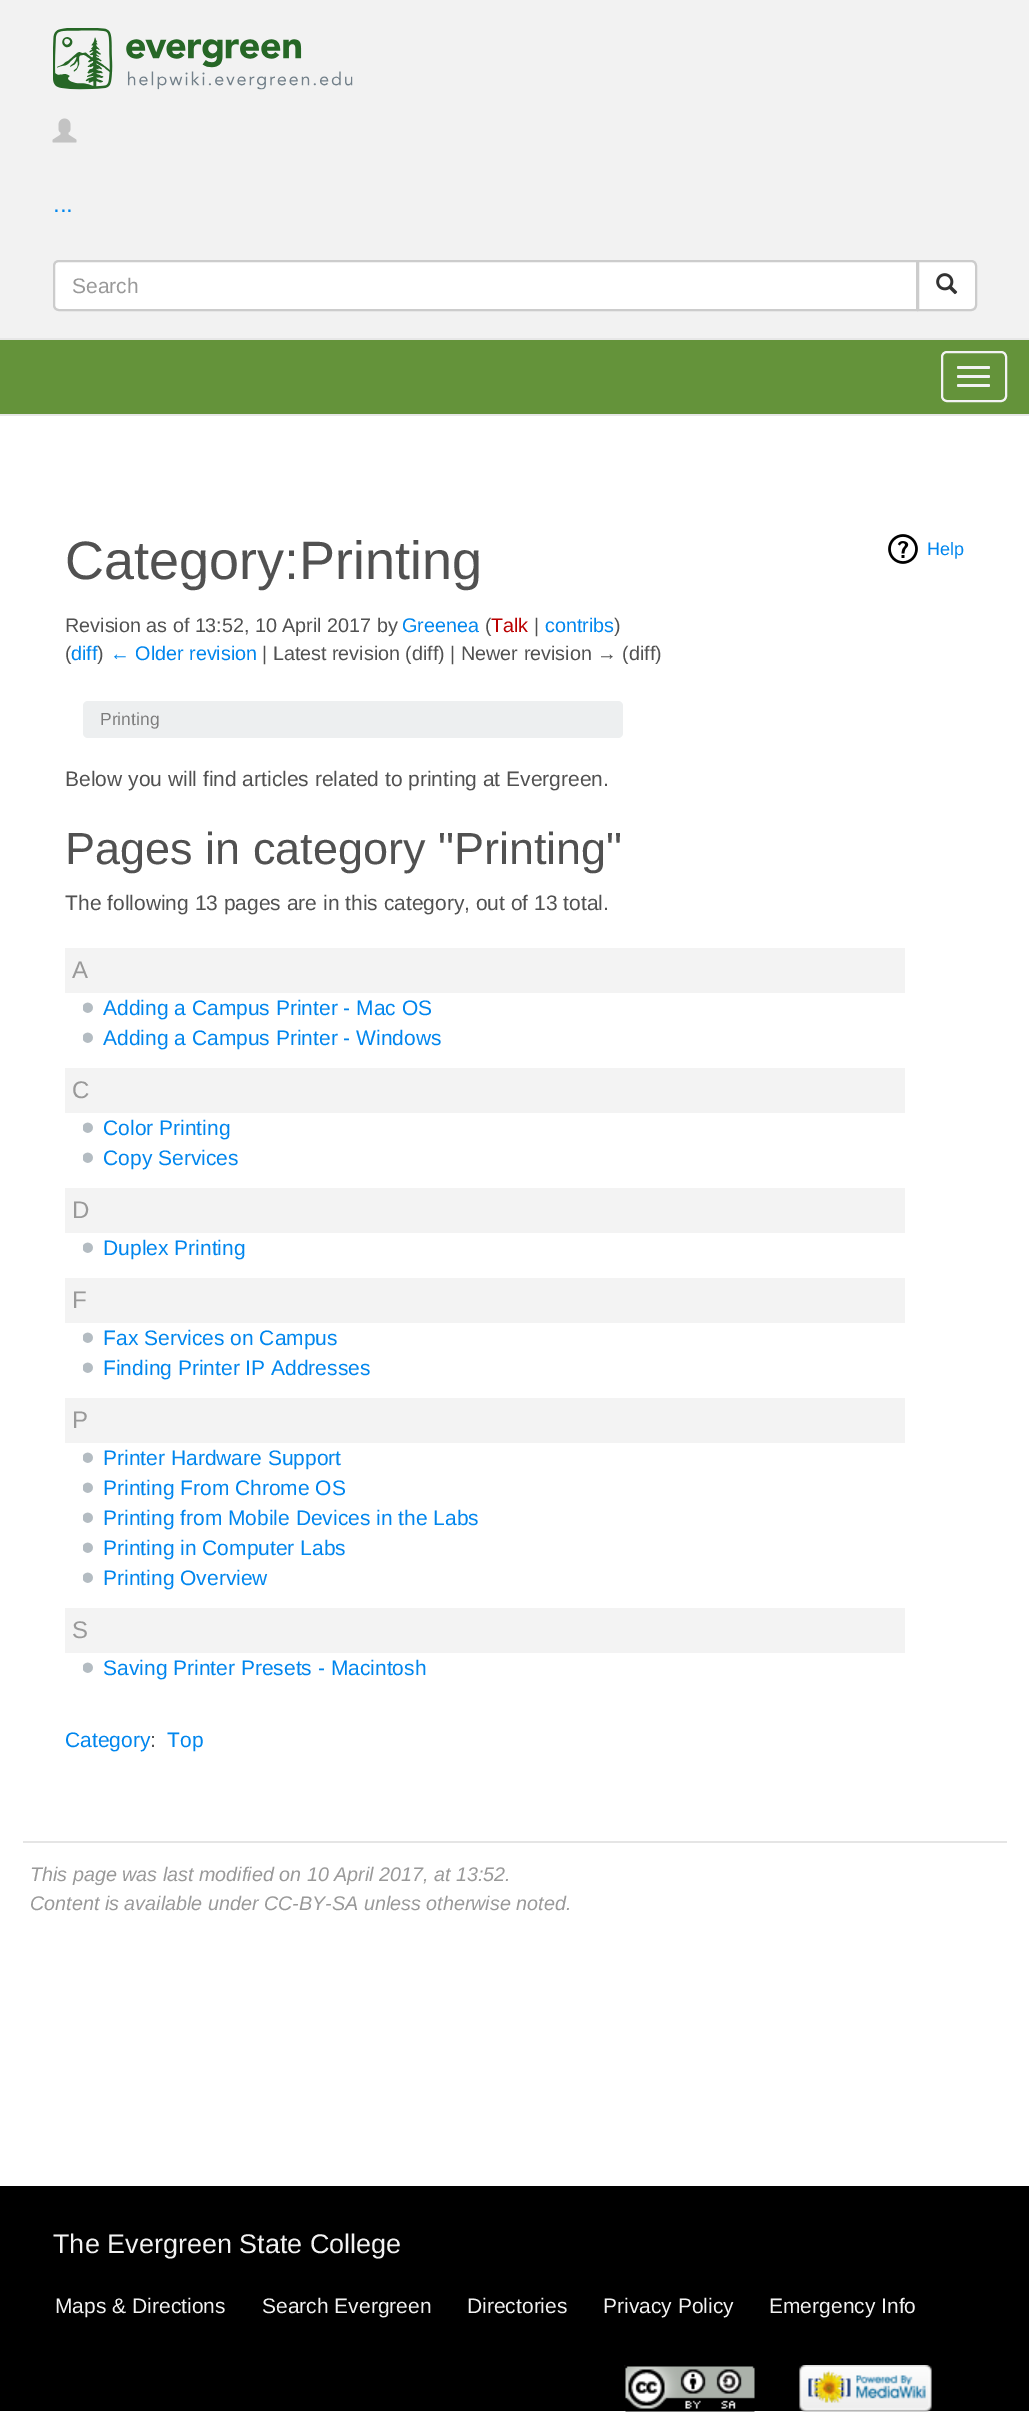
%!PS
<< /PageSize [1029 2412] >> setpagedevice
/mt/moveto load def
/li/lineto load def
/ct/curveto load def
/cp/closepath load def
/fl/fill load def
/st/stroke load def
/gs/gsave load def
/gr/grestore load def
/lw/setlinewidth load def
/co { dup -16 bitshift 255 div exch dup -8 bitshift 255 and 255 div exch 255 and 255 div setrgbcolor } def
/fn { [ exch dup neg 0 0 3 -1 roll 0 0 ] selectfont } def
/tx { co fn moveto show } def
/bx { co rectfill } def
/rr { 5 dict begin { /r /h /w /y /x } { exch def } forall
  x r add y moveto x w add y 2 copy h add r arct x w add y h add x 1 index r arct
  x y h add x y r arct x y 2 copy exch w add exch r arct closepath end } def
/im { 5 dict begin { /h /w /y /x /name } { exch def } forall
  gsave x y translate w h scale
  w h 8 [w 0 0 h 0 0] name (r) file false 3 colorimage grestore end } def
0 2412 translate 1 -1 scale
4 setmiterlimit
0 0 1029 2412 16#FFFFFF bx
0 0 1029 338 16#F2F2F2 bx
(media/1.raw) 53 28 300 62 im
(media/2.raw) 52 118 25 25 im
16#FFFFFF co
59 261 mt 917 261 li 917 310 li 59 310 li 56 310 54 308 54 305 ct 54 266 li 54 263 56 261 59 261 ct cp gs fl gr
16#CCCCCC co
2 lw
st
16#FFFFFF co
918 261 mt 971 261 li 974 261 976 263 976 266 ct 976 305 li 976 308 974 310 971 310 ct 918 310 li cp gs fl gr
16#CCCCCC co
st
(media/3.raw) 936 273 22 22 im
0 340 1029 74 16#64933A bx
0 338 1029 2 16#E7E7E7 bx
0 414 1029 2 16#E7E7E7 bx
16#F3F3F3 co
942 352 64 49 5 rr st
957 366 33 3 1.5 rr fl
957 375 33 3 1.5 rr fl
957 384 33 3 1.5 rr fl
(media/4.raw) 888 534 30 30 im
16#EDEFF0 co
83 701 540 37 5 rr fl
65 948 840 45 16#F3F3F3 bx
(media/5.raw) 83 1002 10 11 im
(media/5.raw) 83 1032 10 11 im
65 1068 840 45 16#F3F3F3 bx
(media/5.raw) 83 1122 10 11 im
(media/5.raw) 83 1152 10 11 im
65 1188 840 45 16#F3F3F3 bx
(media/5.raw) 83 1242 10 11 im
65 1278 840 45 16#F3F3F3 bx
(media/5.raw) 83 1332 10 11 im
(media/5.raw) 83 1362 10 11 im
65 1398 840 45 16#F3F3F3 bx
(media/5.raw) 83 1452 10 11 im
(media/5.raw) 83 1482 10 11 im
(media/5.raw) 83 1512 10 11 im
(media/5.raw) 83 1542 10 11 im
(media/5.raw) 83 1572 10 11 im
65 1608 840 45 16#F3F3F3 bx
(media/5.raw) 83 1662 10 11 im
23 1841 984 2 16#E5E5E5 bx
0 2186 1029 225 16#000000 bx
(media/6.raw) 624 2365 131 47 im
(media/7.raw) 799 2365 133 47 im
(...) 53 212 /LiberationSans-Regular 24 16#0086EE tx
(Search) 72 293 /LiberationSans-Regular 21 16#999999 tx
(Category:Printing) 65 579 /LiberationSans-Regular 54 16#515151 tx
(Revision as of 13:52, 10 April 2017 by) 65 632 /LiberationSans-Regular 19.75 16#515151 tx
(Greenea) 402 632 /LiberationSans-Regular 19.75 16#0086EE tx
(\() 485 632 /LiberationSans-Regular 19.75 16#515151 tx
(Talk) 491 632 /LiberationSans-Regular 19.75 16#BA0000 tx
(|) 534 632 /LiberationSans-Regular 19.75 16#515151 tx
(contribs) 545 632 /LiberationSans-Regular 19.75 16#0086EE tx
(\)) 614 632 /LiberationSans-Regular 19.75 16#515151 tx
(\() 65 660 /LiberationSans-Regular 19.75 16#515151 tx
(diff) 71 660 /LiberationSans-Regular 19.75 16#0086EE tx
(\)) 97 660 /LiberationSans-Regular 19.75 16#515151 tx
(← Older revision) 110 660 /LiberationSans-Regular 19.75 16#0086EE tx
(| Latest revision \(diff\) | Newer revision → \(diff\)) 262 660 /LiberationSans-Regular 19.75 16#515151 tx
(Help) 927 555 /LiberationSans-Regular 18 16#0086EE tx
(Printing) 100 725 /LiberationSans-Regular 17.5 16#7D7D7D tx
(Below you will find articles related to printing at Evergreen.) 65 786 /LiberationSans-Regular 21 16#515151 tx
(Pages in category "Printing") 65 864 /LiberationSans-Regular 45 16#515151 tx
(The following 13 pages are in this category, out of 13 total.) 65 910 /LiberationSans-Regular 21 16#515151 tx
(A) 72 978 /LiberationSans-Regular 24 16#999999 tx
(Adding a Campus Printer - Mac OS) 103 1015 /LiberationSans-Regular 21 16#0086EE tx
(Adding a Campus Printer - Windows) 103 1045 /LiberationSans-Regular 21 16#0086EE tx
(C) 72 1098 /LiberationSans-Regular 24 16#999999 tx
(Color Printing) 103 1135 /LiberationSans-Regular 21 16#0086EE tx
(Copy Services) 103 1165 /LiberationSans-Regular 21 16#0086EE tx
(D) 72 1218 /LiberationSans-Regular 24 16#999999 tx
(Duplex Printing) 103 1255 /LiberationSans-Regular 21 16#0086EE tx
(F) 72 1308 /LiberationSans-Regular 24 16#999999 tx
(Fax Services on Campus) 103 1345 /LiberationSans-Regular 21 16#0086EE tx
(Finding Printer IP Addresses) 103 1375 /LiberationSans-Regular 21 16#0086EE tx
(P) 72 1428 /LiberationSans-Regular 24 16#999999 tx
(Printer Hardware Support) 103 1465 /LiberationSans-Regular 21 16#0086EE tx
(Printing From Chrome OS) 103 1495 /LiberationSans-Regular 21 16#0086EE tx
(Printing from Mobile Devices in the Labs) 103 1525 /LiberationSans-Regular 21 16#0086EE tx
(Printing in Computer Labs) 103 1555 /LiberationSans-Regular 21 16#0086EE tx
(Printing Overview) 103 1585 /LiberationSans-Regular 21 16#0086EE tx
(S) 72 1638 /LiberationSans-Regular 24 16#999999 tx
(Saving Printer Presets - Macintosh) 103 1675 /LiberationSans-Regular 21 16#0086EE tx
(Category) 65 1747 /LiberationSans-Regular 21 16#0086EE tx
(:) 150 1747 /LiberationSans-Regular 21 16#515151 tx
(Top) 167 1747 /LiberationSans-Regular 21 16#0086EE tx
(This page was last modified on 10 April 2017, at 13:52.) 30 1881 /LiberationSans-Italic 19.75 16#999999 tx
(Content is available under CC-BY-SA unless otherwise noted.) 30 1910 /LiberationSans-Italic 19.75 16#999999 tx
(The Evergreen State College) 53 2253 /LiberationSans-Regular 27 16#F2F2F2 tx
(Maps & Directions) 55 2313 /LiberationSans-Regular 21 16#F2F2F2 tx
(Search Evergreen) 262 2313 /LiberationSans-Regular 21 16#F2F2F2 tx
(Directories) 467 2313 /LiberationSans-Regular 21 16#F2F2F2 tx
(Privacy Policy) 603 2313 /LiberationSans-Regular 21 16#F2F2F2 tx
(Emergency Info) 769 2313 /LiberationSans-Regular 21 16#F2F2F2 tx
showpage
